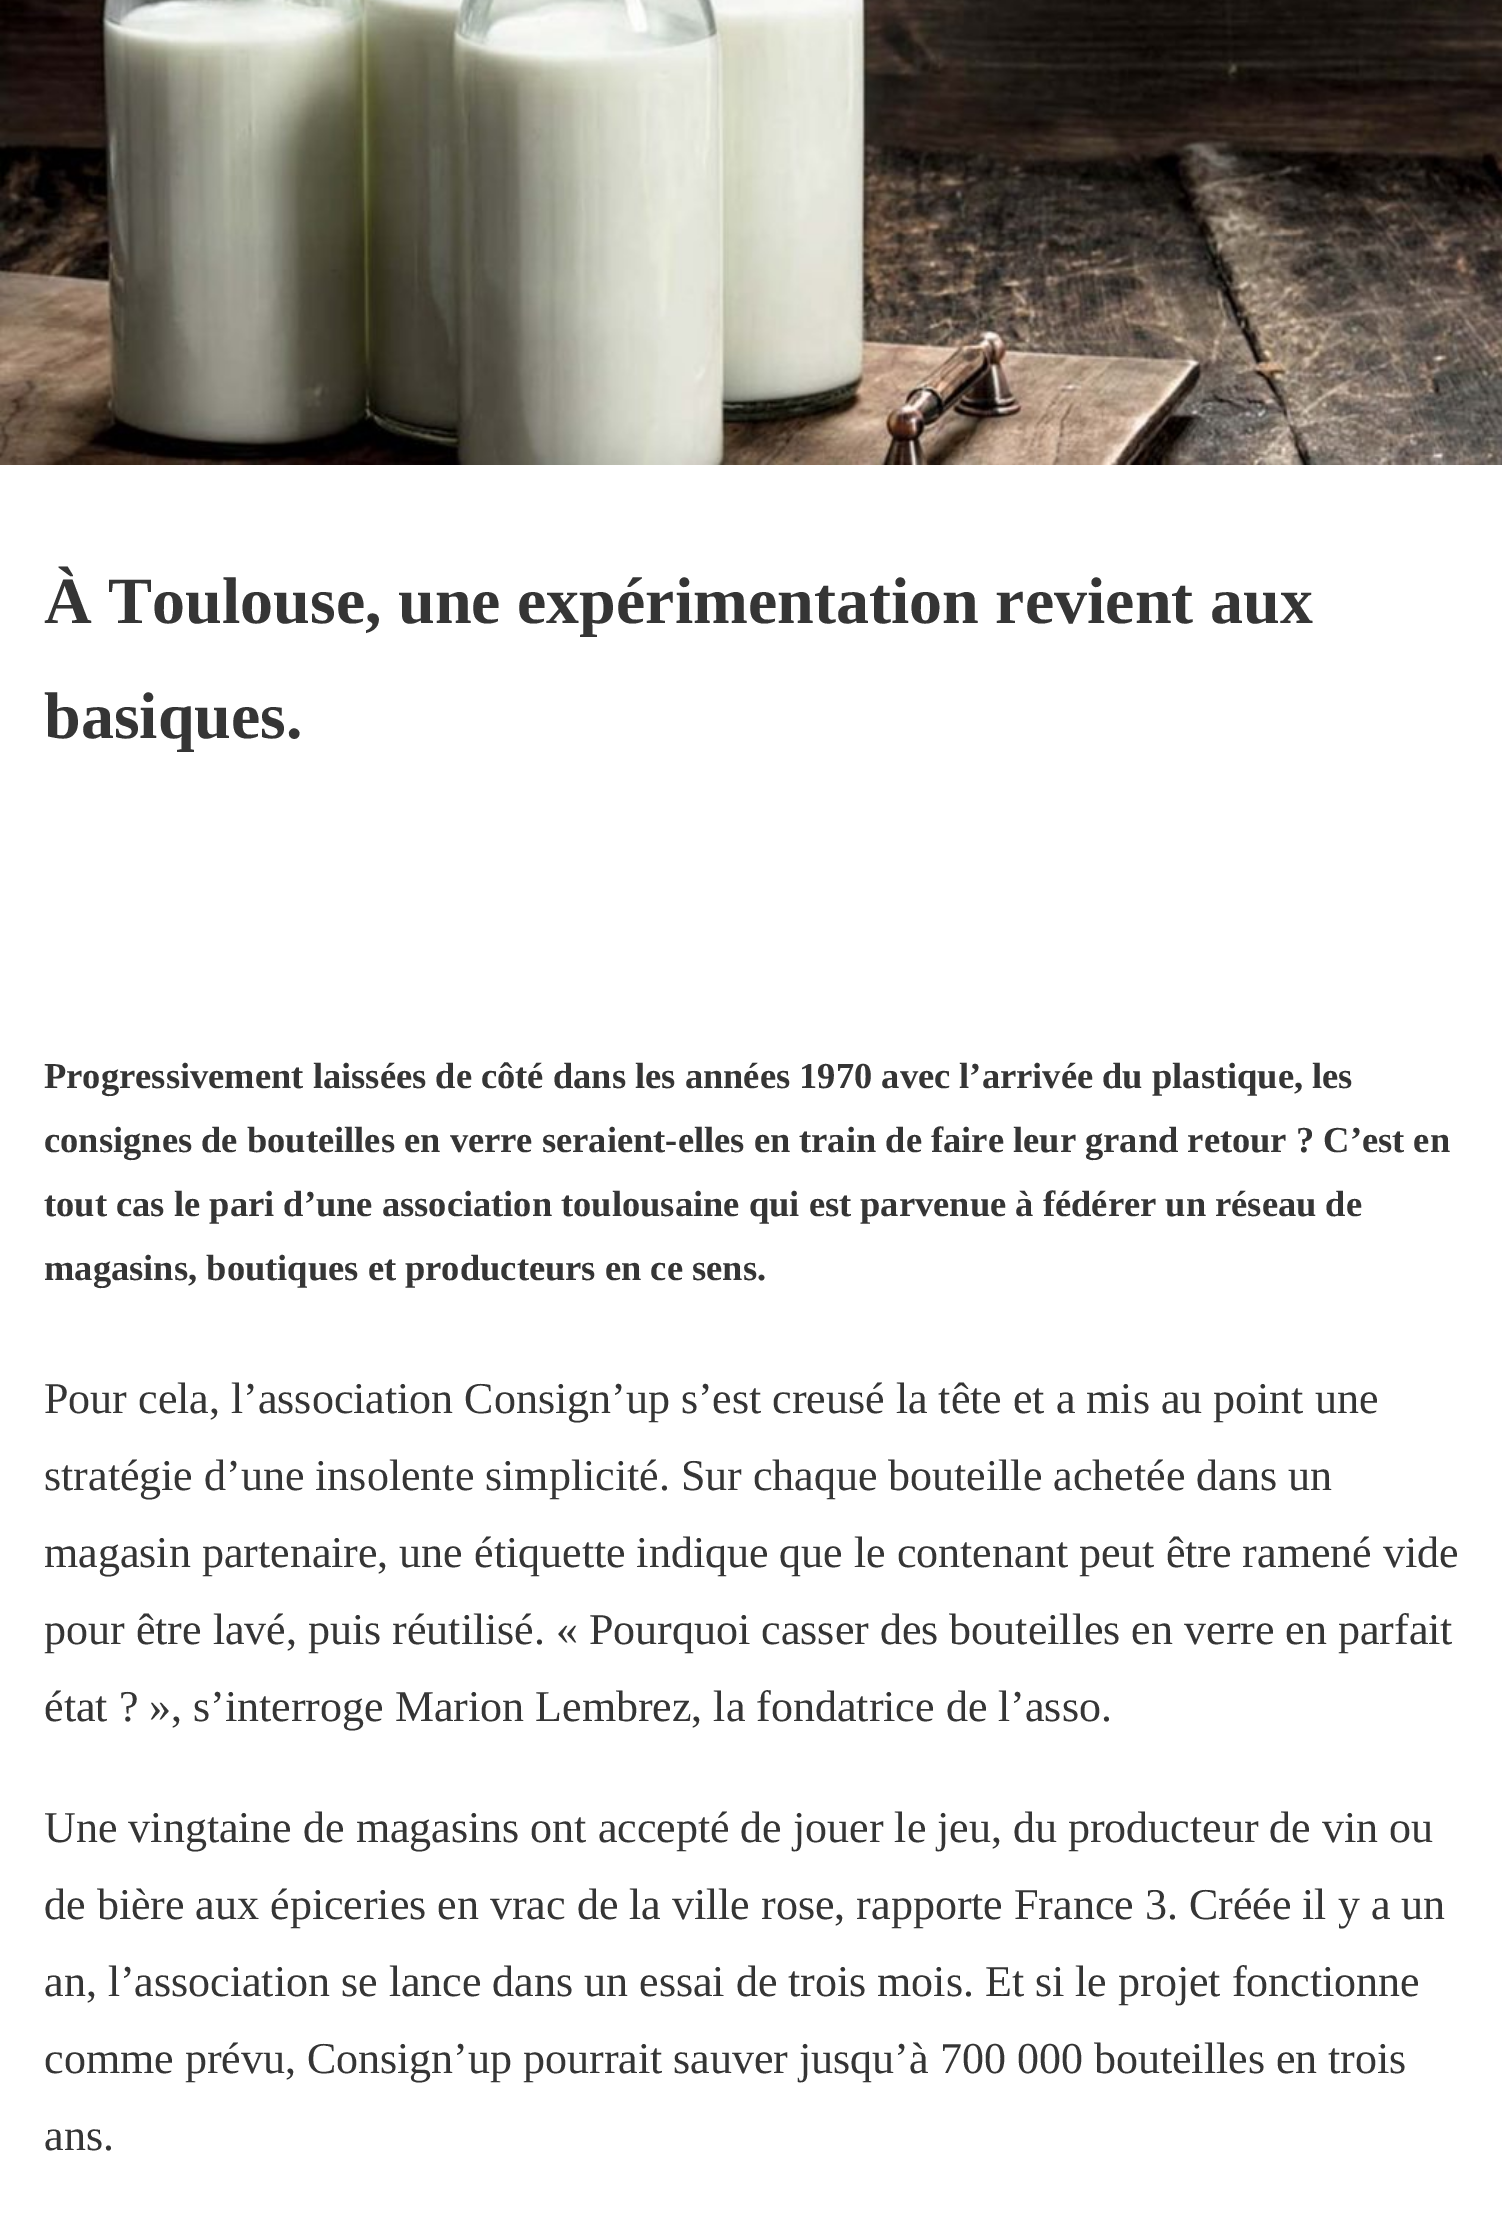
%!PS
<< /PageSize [1502 2232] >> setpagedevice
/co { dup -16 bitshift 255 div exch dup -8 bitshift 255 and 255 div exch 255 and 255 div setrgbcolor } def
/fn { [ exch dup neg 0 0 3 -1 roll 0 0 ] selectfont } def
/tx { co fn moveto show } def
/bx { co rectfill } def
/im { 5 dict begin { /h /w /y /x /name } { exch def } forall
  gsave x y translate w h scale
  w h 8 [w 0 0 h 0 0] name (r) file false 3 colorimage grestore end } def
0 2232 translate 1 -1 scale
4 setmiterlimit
0 0 1502 2232 16#FFFFFF bx
(media/1.raw) 0 0 1502 465 im
(À Toulouse, une expérimentation revient aux) 44 623 /LiberationSerif-Bold 66 16#353535 tx
(basiques.) 44 738 /LiberationSerif-Bold 66 16#353535 tx
(Progressivement laissées de côté dans les années 1970 avec l’arrivée du plastique, les) 44 1088 /LiberationSerif-Bold 36.5 16#353535 tx
(consignes de bouteilles en verre seraient-elles en train de faire leur grand retour ? C’est en) 44 1152 /LiberationSerif-Bold 36.5 16#353535 tx
(tout cas le pari d’une association toulousaine qui est parvenue à fédérer un réseau de) 44 1216 /LiberationSerif-Bold 36.5 16#353535 tx
(magasins, boutiques et producteurs en ce sens.) 44 1280 /LiberationSerif-Bold 36.5 16#353535 tx
(Pour cela, l’association Consign’up s’est creusé la tête et a mis au point une) 44 1413 /LiberationSerif-Regular 44 16#353535 tx
(stratégie d’une insolente simplicité. Sur chaque bouteille achetée dans un) 44 1490 /LiberationSerif-Regular 44 16#353535 tx
(magasin partenaire, une étiquette indique que le contenant peut être ramené vide) 44 1567 /LiberationSerif-Regular 44 16#353535 tx
(pour être lavé, puis réutilisé. « Pourquoi casser des bouteilles en verre en parfait) 44 1644 /LiberationSerif-Regular 44 16#353535 tx
(état ? », s’interroge Marion Lembrez, la fondatrice de l’asso.) 44 1721 /LiberationSerif-Regular 44 16#353535 tx
(Une vingtaine de magasins ont accepté de jouer le jeu, du producteur de vin ou) 44 1842 /LiberationSerif-Regular 44 16#353535 tx
(de bière aux épiceries en vrac de la ville rose, rapporte France 3. Créée il y a un) 44 1919 /LiberationSerif-Regular 44 16#353535 tx
(an, l’association se lance dans un essai de trois mois. Et si le projet fonctionne) 44 1996 /LiberationSerif-Regular 44 16#353535 tx
(comme prévu, Consign’up pourrait sauver jusqu’à 700 000 bouteilles en trois) 44 2073 /LiberationSerif-Regular 44 16#353535 tx
(ans.) 44 2150 /LiberationSerif-Regular 44 16#353535 tx
showpage
